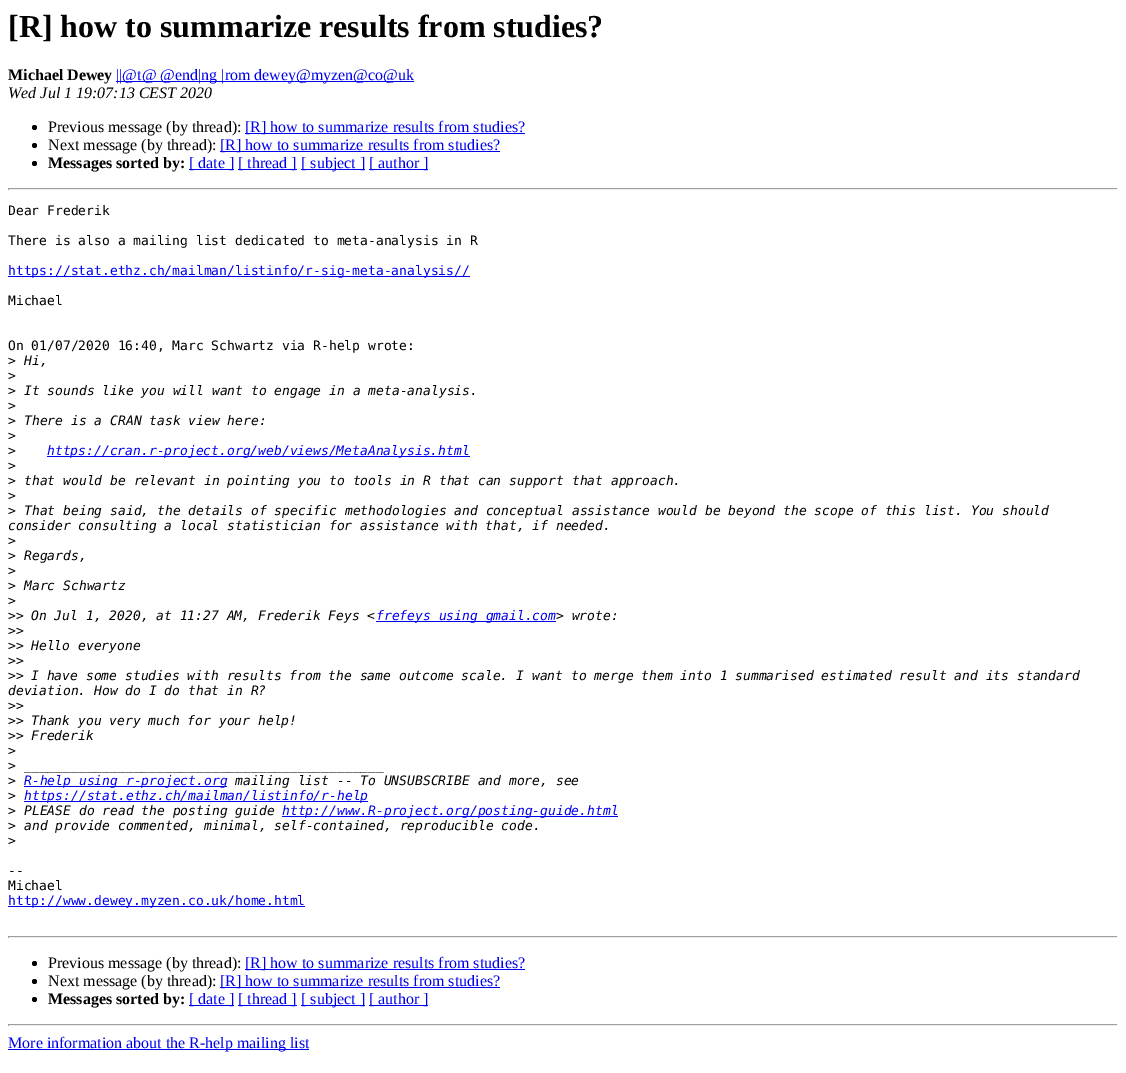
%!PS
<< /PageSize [1126 1073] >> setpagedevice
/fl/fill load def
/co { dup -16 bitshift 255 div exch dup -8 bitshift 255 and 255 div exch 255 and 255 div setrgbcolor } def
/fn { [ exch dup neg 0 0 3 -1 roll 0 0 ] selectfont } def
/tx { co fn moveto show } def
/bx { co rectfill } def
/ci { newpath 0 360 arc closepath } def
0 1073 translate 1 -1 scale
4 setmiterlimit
0 0 1126 1073 16#FFFFFF bx
116 81 298 1 16#0000EE bx
16#000000 co
34.5 127.5 2.5 ci fl
245 133 280 1 16#0000EE bx
16#000000 co
34.5 145.5 2.5 ci fl
220 151 280 1 16#0000EE bx
16#000000 co
34.5 163.5 2.5 ci fl
189 169 45 1 16#0000EE bx
238 169 59 1 16#0000EE bx
301 169 64 1 16#0000EE bx
369 169 59 1 16#0000EE bx
8 188 1110 1 16#9F9F9F bx
1117 188 1 2 16#EEEEEE bx
8 189 1110 1 16#EEEEEE bx
8 188 1 2 16#9F9F9F bx
8 276 462 1 16#0000EE bx
47 456 423 1 16#0000EE bx
376 621 180 1 16#0000EE bx
24 786 203 1 16#0000EE bx
24 801 344 1 16#0000EE bx
282 816 336 1 16#0000EE bx
8 906 297 1 16#0000EE bx
8 936 1110 1 16#9F9F9F bx
1117 936 1 2 16#EEEEEE bx
8 937 1110 1 16#EEEEEE bx
8 936 1 2 16#9F9F9F bx
16#000000 co
34.5 963.5 2.5 ci fl
245 969 280 1 16#0000EE bx
16#000000 co
34.5 981.5 2.5 ci fl
220 987 280 1 16#0000EE bx
16#000000 co
34.5 999.5 2.5 ci fl
189 1005 45 1 16#0000EE bx
238 1005 59 1 16#0000EE bx
301 1005 64 1 16#0000EE bx
369 1005 59 1 16#0000EE bx
8 1024 1110 1 16#9F9F9F bx
1117 1024 1 2 16#EEEEEE bx
8 1025 1110 1 16#EEEEEE bx
8 1024 1 2 16#9F9F9F bx
8 1049 301 1 16#0000EE bx
([R] how to summarize results from studies?) 8 37 /LiberationSerif-Bold 32 16#000000 tx
(Michael Dewey) 8 80 /LiberationSerif-Bold 16 16#000000 tx
(||@t@ @end|ng |rom dewey@myzen@co@uk) 116 80 /LiberationSerif-Regular 16 16#0000EE tx
(Wed Jul 1 19:07:13 CEST 2020) 8 98 /LiberationSerif-Italic 16 16#000000 tx
(Previous message \(by thread\):) 48 132 /LiberationSerif-Regular 16 16#000000 tx
([R] how to summarize results from studies?) 245 132 /LiberationSerif-Regular 16 16#0000EE tx
(Next message \(by thread\):) 48 150 /LiberationSerif-Regular 16 16#000000 tx
([R] how to summarize results from studies?) 220 150 /LiberationSerif-Regular 16 16#0000EE tx
(Messages sorted by:) 48 168 /LiberationSerif-Bold 16 16#000000 tx
([ date ]) 189 168 /LiberationSerif-Regular 16 16#0000EE tx
([ thread ]) 238 168 /LiberationSerif-Regular 16 16#0000EE tx
([ subject ]) 301 168 /LiberationSerif-Regular 16 16#0000EE tx
([ author ]) 369 168 /LiberationSerif-Regular 16 16#0000EE tx
(Dear Frederik) 8 215 /DejaVuSansMono-Regular 13 16#000000 tx
(There is also a mailing list dedicated to meta-analysis in R) 8 245 /DejaVuSansMono-Regular 13 16#000000 tx
(https://stat.ethz.ch/mailman/listinfo/r-sig-meta-analysis//) 8 275 /DejaVuSansMono-Regular 13 16#0000EE tx
(Michael) 8 305 /DejaVuSansMono-Regular 13 16#000000 tx
(On 01/07/2020 16:40, Marc Schwartz via R-help wrote:) 8 350 /DejaVuSansMono-Regular 13 16#000000 tx
(>) 8 365 /DejaVuSansMono-Regular 13 16#000000 tx
(Hi,) 24 365 /DejaVuSansMono-Italic 13 16#000000 tx
(>) 8 380 /DejaVuSansMono-Regular 13 16#000000 tx
(>) 8 395 /DejaVuSansMono-Regular 13 16#000000 tx
(It sounds like you will want to engage in a meta-analysis.) 24 395 /DejaVuSansMono-Italic 13 16#000000 tx
(>) 8 410 /DejaVuSansMono-Regular 13 16#000000 tx
(>) 8 425 /DejaVuSansMono-Regular 13 16#000000 tx
(There is a CRAN task view here:) 24 425 /DejaVuSansMono-Italic 13 16#000000 tx
(>) 8 440 /DejaVuSansMono-Regular 13 16#000000 tx
(>) 8 455 /DejaVuSansMono-Regular 13 16#000000 tx
(https://cran.r-project.org/web/views/MetaAnalysis.html) 47 455 /DejaVuSansMono-Italic 13 16#0000EE tx
(>) 8 470 /DejaVuSansMono-Regular 13 16#000000 tx
(>) 8 485 /DejaVuSansMono-Regular 13 16#000000 tx
(that would be relevant in pointing you to tools in R that can support that approach.) 24 485 /DejaVuSansMono-Italic 13 16#000000 tx
(>) 8 500 /DejaVuSansMono-Regular 13 16#000000 tx
(>) 8 515 /DejaVuSansMono-Regular 13 16#000000 tx
(That being said, the details of specific methodologies and conceptual assistance would be beyond the scope of this list. You should) 24 515 /DejaVuSansMono-Italic 13 16#000000 tx
(consider consulting a local statistician for assistance with that, if needed.) 8 530 /DejaVuSansMono-Italic 13 16#000000 tx
(>) 8 545 /DejaVuSansMono-Regular 13 16#000000 tx
(>) 8 560 /DejaVuSansMono-Regular 13 16#000000 tx
(Regards,) 24 560 /DejaVuSansMono-Italic 13 16#000000 tx
(>) 8 575 /DejaVuSansMono-Regular 13 16#000000 tx
(>) 8 590 /DejaVuSansMono-Regular 13 16#000000 tx
(Marc Schwartz) 24 590 /DejaVuSansMono-Italic 13 16#000000 tx
(>) 8 605 /DejaVuSansMono-Regular 13 16#000000 tx
(>>) 8 620 /DejaVuSansMono-Regular 13 16#000000 tx
(On Jul 1, 2020, at 11:27 AM, Frederik Feys <) 31 620 /DejaVuSansMono-Italic 13 16#000000 tx
(frefeys using gmail.com) 376 620 /DejaVuSansMono-Italic 13 16#0000EE tx
(> wrote:) 556 620 /DejaVuSansMono-Italic 13 16#000000 tx
(>>) 8 635 /DejaVuSansMono-Regular 13 16#000000 tx
(>>) 8 650 /DejaVuSansMono-Regular 13 16#000000 tx
(Hello everyone) 31 650 /DejaVuSansMono-Italic 13 16#000000 tx
(>>) 8 665 /DejaVuSansMono-Regular 13 16#000000 tx
(>>) 8 680 /DejaVuSansMono-Regular 13 16#000000 tx
(I have some studies with results from the same outcome scale. I want to merge them into 1 summarised estimated result and its standard) 31 680 /DejaVuSansMono-Italic 13 16#000000 tx
(deviation. How do I do that in R?) 8 695 /DejaVuSansMono-Italic 13 16#000000 tx
(>>) 8 710 /DejaVuSansMono-Regular 13 16#000000 tx
(>>) 8 725 /DejaVuSansMono-Regular 13 16#000000 tx
(Thank you very much for your help!) 31 725 /DejaVuSansMono-Italic 13 16#000000 tx
(>>) 8 740 /DejaVuSansMono-Regular 13 16#000000 tx
(Frederik) 31 740 /DejaVuSansMono-Italic 13 16#000000 tx
(>) 8 755 /DejaVuSansMono-Regular 13 16#000000 tx
(>) 8 770 /DejaVuSansMono-Regular 13 16#000000 tx
(______________________________________________) 24 770 /DejaVuSansMono-Italic 13 16#000000 tx
(>) 8 785 /DejaVuSansMono-Regular 13 16#000000 tx
(R-help using r-project.org) 24 785 /DejaVuSansMono-Italic 13 16#0000EE tx
(mailing list -- To UNSUBSCRIBE and more, see) 235 785 /DejaVuSansMono-Italic 13 16#000000 tx
(>) 8 800 /DejaVuSansMono-Regular 13 16#000000 tx
(https://stat.ethz.ch/mailman/listinfo/r-help) 24 800 /DejaVuSansMono-Italic 13 16#0000EE tx
(>) 8 815 /DejaVuSansMono-Regular 13 16#000000 tx
(PLEASE do read the posting guide) 24 815 /DejaVuSansMono-Italic 13 16#000000 tx
(http://www.R-project.org/posting-guide.html) 282 815 /DejaVuSansMono-Italic 13 16#0000EE tx
(>) 8 830 /DejaVuSansMono-Regular 13 16#000000 tx
(and provide commented, minimal, self-contained, reproducible code.) 24 830 /DejaVuSansMono-Italic 13 16#000000 tx
(>) 8 845 /DejaVuSansMono-Regular 13 16#000000 tx
(--) 8 875 /DejaVuSansMono-Regular 13 16#000000 tx
(Michael) 8 890 /DejaVuSansMono-Regular 13 16#000000 tx
(http://www.dewey.myzen.co.uk/home.html) 8 905 /DejaVuSansMono-Regular 13 16#0000EE tx
(Previous message \(by thread\):) 48 968 /LiberationSerif-Regular 16 16#000000 tx
([R] how to summarize results from studies?) 245 968 /LiberationSerif-Regular 16 16#0000EE tx
(Next message \(by thread\):) 48 986 /LiberationSerif-Regular 16 16#000000 tx
([R] how to summarize results from studies?) 220 986 /LiberationSerif-Regular 16 16#0000EE tx
(Messages sorted by:) 48 1004 /LiberationSerif-Bold 16 16#000000 tx
([ date ]) 189 1004 /LiberationSerif-Regular 16 16#0000EE tx
([ thread ]) 238 1004 /LiberationSerif-Regular 16 16#0000EE tx
([ subject ]) 301 1004 /LiberationSerif-Regular 16 16#0000EE tx
([ author ]) 369 1004 /LiberationSerif-Regular 16 16#0000EE tx
(More information about the R-help mailing list) 8 1048 /LiberationSerif-Regular 16 16#0000EE tx
showpage
